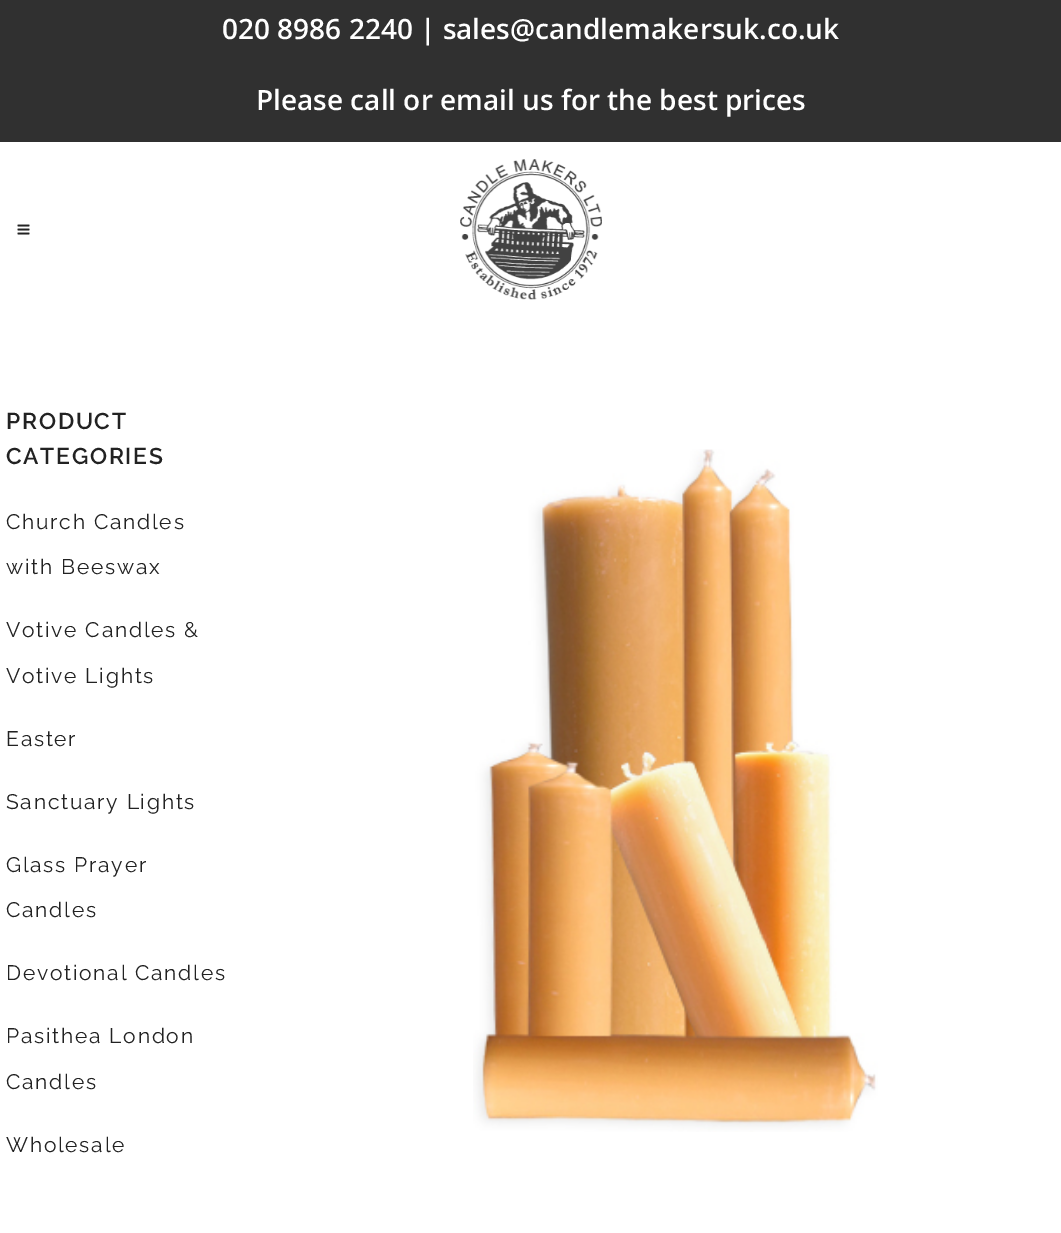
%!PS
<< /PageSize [1061 1233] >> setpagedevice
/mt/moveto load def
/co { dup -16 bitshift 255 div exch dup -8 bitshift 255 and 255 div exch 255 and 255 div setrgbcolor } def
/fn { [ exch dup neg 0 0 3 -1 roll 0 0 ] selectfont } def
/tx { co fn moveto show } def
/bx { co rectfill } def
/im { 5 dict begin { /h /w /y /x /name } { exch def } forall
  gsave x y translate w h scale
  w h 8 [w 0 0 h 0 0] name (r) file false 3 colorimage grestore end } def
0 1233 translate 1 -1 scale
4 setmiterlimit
0 0 1061 1233 16#FFFFFF bx
0 0 1061 142 16#303030 bx
(media/1.raw) 17 224 13 11 im
(media/2.raw) 460 159 142 141 im
(media/3.raw) 473 449 405 683 im
(020 8986 2240 | sales@candlemakersuk.co.uk) 222 39 /OpenSans-SemiBold 28 16#FFFFFF tx
(Please call or email us for the best prices) 256 110 /OpenSans-SemiBold 28 16#FFFFFF tx
/Raleway-SemiBold 22.75 fn
16#222222 co
6 429 mt 1.75 0 (PRODUCT) ashow
6 464 mt 1.75 0 (CATEGORIES) ashow
/Raleway-Regular 21 fn
6 529 mt 1.75 0 (Church Candles) ashow
6 574 mt 1.75 0 (with Beeswax) ashow
6 637 mt 1.75 0 (Votive Candles &) ashow
6 683 mt 1.75 0 (Votive Lights) ashow
6 746 mt 1.75 0 (Easter) ashow
6 809 mt 1.75 0 (Sanctuary Lights) ashow
6 872 mt 1.75 0 (Glass Prayer) ashow
6 917 mt 1.75 0 (Candles) ashow
6 980 mt 1.75 0 (Devotional Candles) ashow
6 1043 mt 1.75 0 (Pasithea London) ashow
6 1089 mt 1.75 0 (Candles) ashow
6 1152 mt 1.75 0 (Wholesale) ashow
showpage
